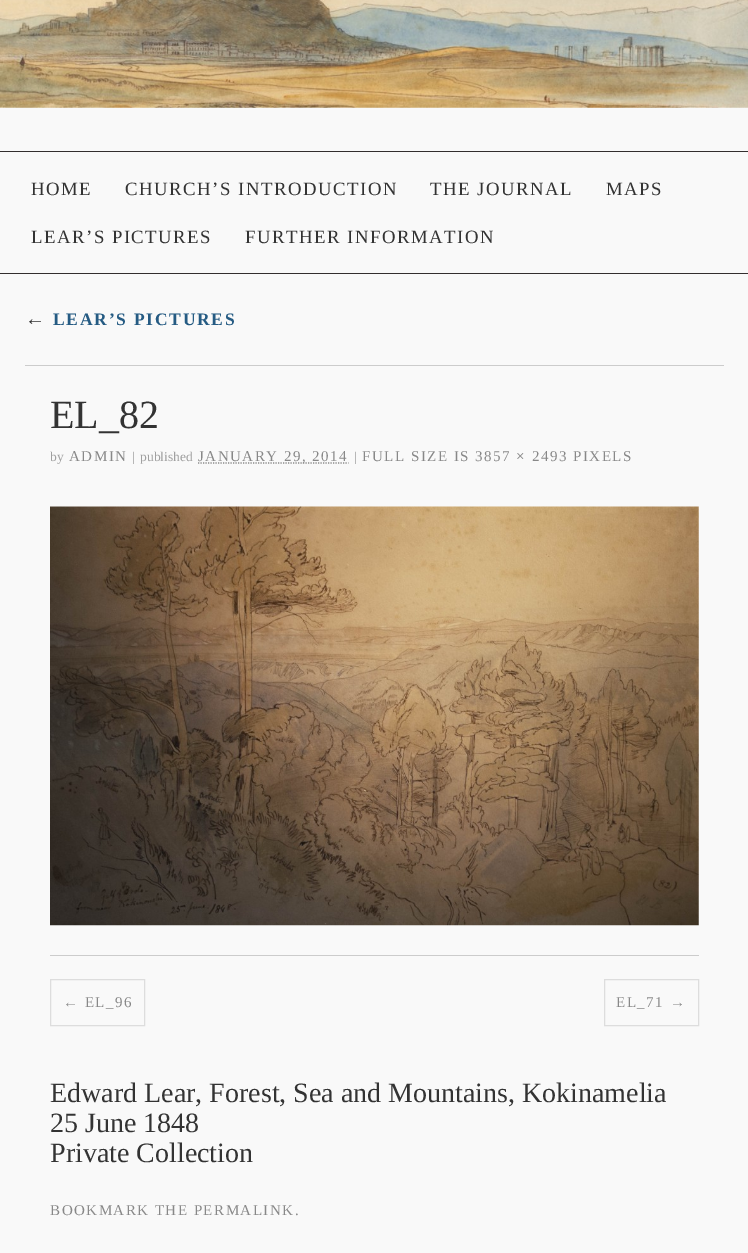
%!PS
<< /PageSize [748 1253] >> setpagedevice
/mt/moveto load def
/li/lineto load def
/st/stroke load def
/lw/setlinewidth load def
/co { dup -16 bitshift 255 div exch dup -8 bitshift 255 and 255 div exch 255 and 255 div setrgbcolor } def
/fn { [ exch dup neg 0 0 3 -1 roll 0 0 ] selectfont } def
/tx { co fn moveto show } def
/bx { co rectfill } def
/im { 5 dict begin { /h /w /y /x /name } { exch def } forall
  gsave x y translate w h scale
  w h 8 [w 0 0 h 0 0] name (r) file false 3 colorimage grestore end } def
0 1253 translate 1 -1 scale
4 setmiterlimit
0 0 748 1253 16#F9F9F9 bx
(media/1.raw) 0 0 748 108 im
0 151 748 1 16#332E2E bx
0 273 748 1 16#332E2E bx
25 365 699 1 16#CCCCCC bx
16#888888 co
1.2 lw
[1.25 1.25] 0 setdash
198 463 mt 348.5 463 li st
(media/2.raw) 50 506 649 420 im
50 955 649 1 16#CCCCCC bx
16#DDDDDD co
1 lw
[] 0 setdash
50.5 979.5 94 46 rectstroke
604.5 979.5 94 46 rectstroke
/LiberationSerif-Regular 18.75 fn
16#333333 co
31 195 mt 1.5 0 (HOME) ashow
125 195 mt 1.5 0 (CHURCH’S INTRODUCTION) ashow
430 195 mt 1.5 0 (THE JOURNAL) ashow
606 195 mt 1.5 0 (MAPS) ashow
31 243 mt 1.5 0 (LEAR’S PICTURES) ashow
245 243 mt 1.5 0 (FURTHER INFORMATION) ashow
/LiberationSerif-Italic 20 fn
25 325 mt 1.75 0 (←) ashow
/LiberationSerif-Bold 17.5 fn
16#255B83 co
53 325 mt 1.75 0 (LEAR’S PICTURES) ashow
(EL_82) 50 428 /LiberationSerif-Regular 40 16#333333 tx
(by) 50 461 /LiberationSerif-Regular 13.5 16#A0A0A0 tx
/LiberationSerif-Regular 15 fn
16#888888 co
69 461 mt 1.5 0 (ADMIN) ashow
(|) 132 461 /LiberationSerif-Regular 13.5 16#A0A0A0 tx
(published) 140 461 /LiberationSerif-Regular 13.5 16#A0A0A0 tx
/LiberationSerif-Regular 15 fn
16#888888 co
198 461 mt 1.5 0 (JANUARY 29, 2014) ashow
(|) 354 461 /LiberationSerif-Regular 13.5 16#A0A0A0 tx
/LiberationSerif-Regular 15 fn
16#888888 co
362 461 mt 1.5 0 (FULL SIZE IS 3857 × 2493 PIXELS) ashow
63 1007 mt 1.5 0 (← EL_96) ashow
616 1007 mt 1.5 0 (EL_71 →) ashow
(Edward Lear, Forest, Sea and Mountains, Kokinamelia) 50 1102 /LiberationSerif-Regular 28 16#333333 tx
(25 June 1848) 50 1132 /LiberationSerif-Regular 28 16#333333 tx
(Private Collection) 50 1162 /LiberationSerif-Regular 28 16#333333 tx
/LiberationSerif-Regular 15 fn
16#888888 co
50 1215 mt 1.5 0 (BOOKMARK THE PERMALINK.) ashow
showpage
